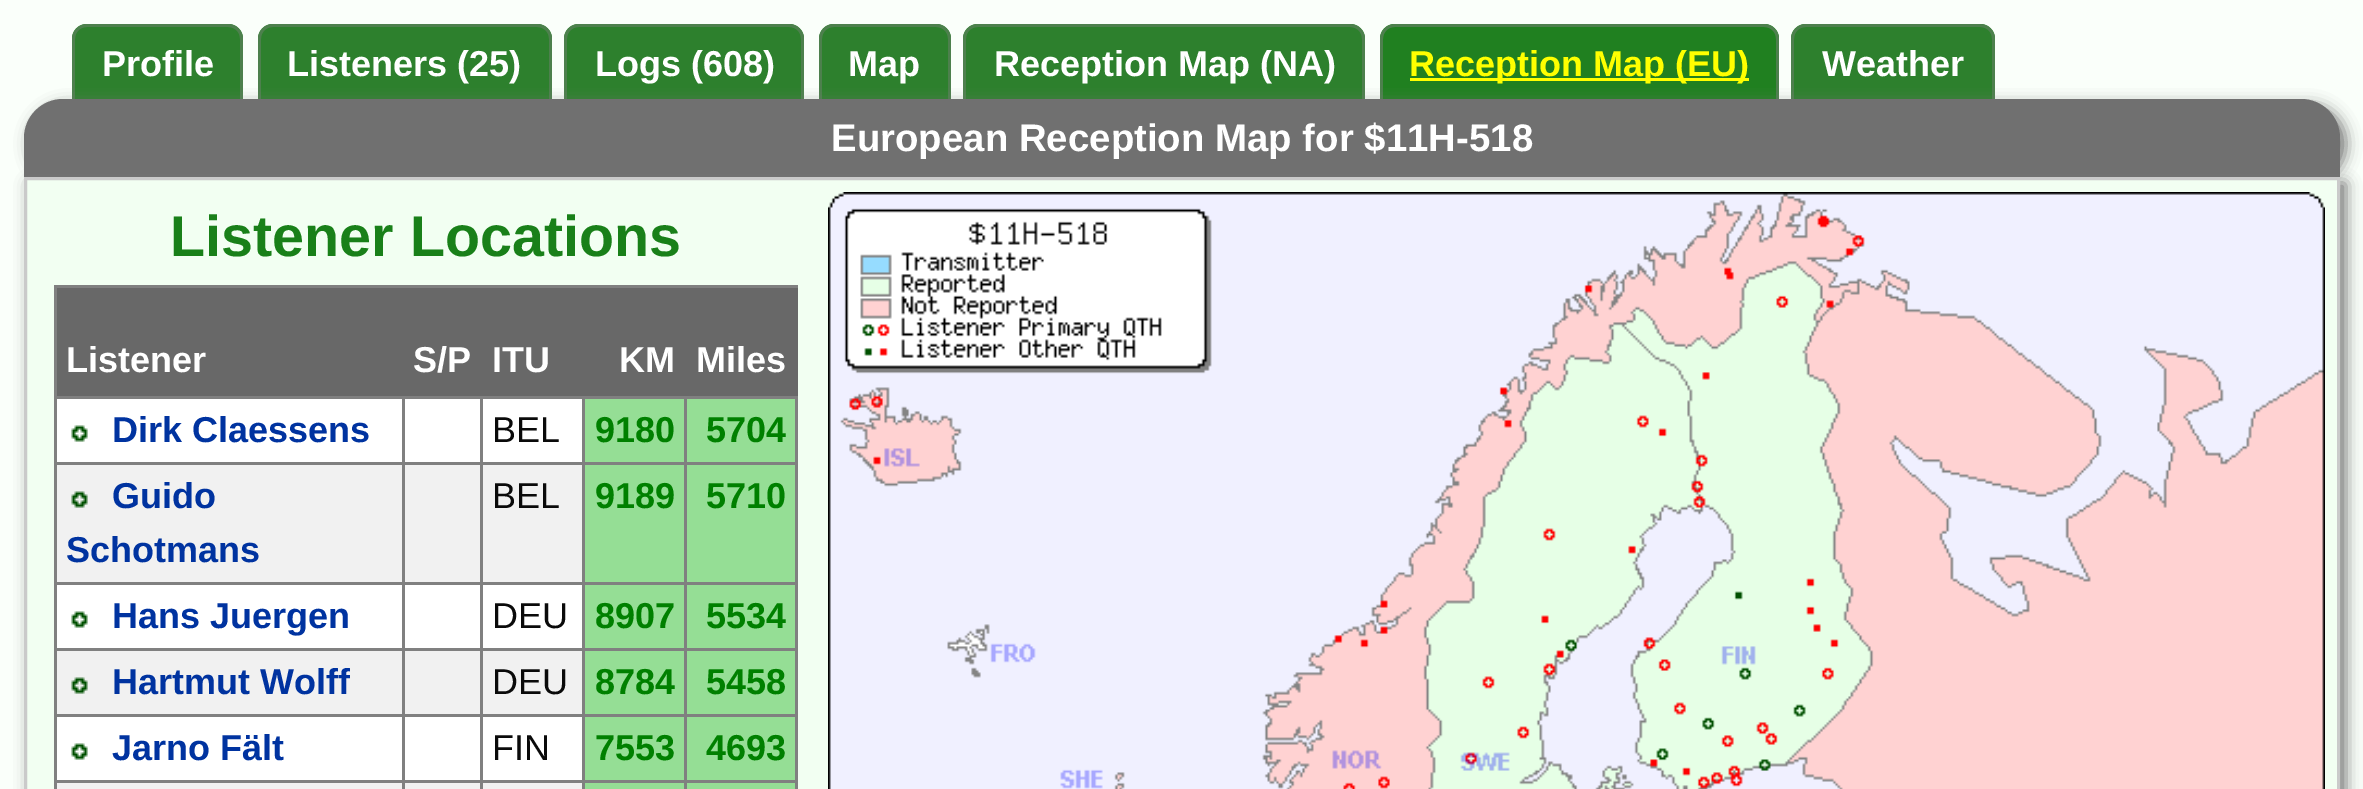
%!PS
<< /PageSize [2363 789] /PageUsesTransparency true >> setpagedevice
/mt/moveto load def
/li/lineto load def
/ct/curveto load def
/cp/closepath load def
/fl/fill load def
/st/stroke load def
/gs/gsave load def
/gr/grestore load def
/lw/setlinewidth load def
/co { dup -16 bitshift 255 div exch dup -8 bitshift 255 and 255 div exch 255 and 255 div setrgbcolor } def
/fn { [ exch dup neg 0 0 3 -1 roll 0 0 ] selectfont } def
/tx { co fn moveto show } def
/bx { co rectfill } def
/al { dup .setfillconstantalpha .setstrokeconstantalpha } def
/rr { 5 dict begin { /r /h /w /y /x } { exch def } forall
  x r add y moveto x w add y 2 copy h add r arct x w add y h add x 1 index r arct
  x y h add x y r arct x y 2 copy exch w add exch r arct closepath end } def
/sh { 12 dict begin { /a /b /q /h /w /y /x } { exch def } forall gsave /was 0 def
  9 -2 -9 { dup b mul 4 div /e exch def 1 sub .425 mul 2.718 exch exp 1 add a .99 .min exch div /now exch def
    1 1 now sub 1 was sub div sub al /was now def
    w h .min e 2 mul add 0 gt { x e sub y e sub w e 2 mul add h e 2 mul add
      q e add b .6 mul add w h .min 2 div e add .min 0 .max rr fill } if } for grestore end } def
/im { 5 dict begin { /h /w /y /x /name } { exch def } forall
  gsave x y translate w h scale
  w h 8 [w 0 0 h 0 0] name (r) file false 3 colorimage grestore end } def
0 .pushpdf14devicefilter
0 789 translate 1 -1 scale
4 setmiterlimit
0 0 2363 789 16#FAFFFA bx
16#2D802D co
87 24 mt 228 24 li 236.5 24 243 30.5 243 39 ct 243 99 li 72 99 li 72 39 li 72 30.5 78.5 24 87 24 ct cp fl
16#4D804D co
87 24 mt 228 24 li 236 24 243 31 243 39 ct 243 99 li 72 99 li 72 39 li 72 31 79 24 87 24 ct cp 87 27 mt 228 27 li 235 27 240 32 240 39 ct 240 99 li 75 99 li 75 39 li 75 32 80 27 87 27 ct cp eofill
16#2D802D co
273 24 mt 537 24 li 545.5 24 552 30.5 552 39 ct 552 99 li 258 99 li 258 39 li 258 30.5 264.5 24 273 24 ct cp fl
16#4D804D co
273 24 mt 537 24 li 545 24 552 31 552 39 ct 552 99 li 258 99 li 258 39 li 258 31 265 24 273 24 ct cp 273 27 mt 537 27 li 544 27 549 32 549 39 ct 549 99 li 261 99 li 261 39 li 261 32 266 27 273 27 ct cp eofill
16#2D802D co
579 24 mt 789 24 li 797.5 24 804 30.5 804 39 ct 804 99 li 564 99 li 564 39 li 564 30.5 570.5 24 579 24 ct cp fl
16#4D804D co
579 24 mt 789 24 li 797 24 804 31 804 39 ct 804 99 li 564 99 li 564 39 li 564 31 571 24 579 24 ct cp 579 27 mt 789 27 li 796 27 801 32 801 39 ct 801 99 li 567 99 li 567 39 li 567 32 572 27 579 27 ct cp eofill
16#2D802D co
834 24 mt 936 24 li 944.5 24 951 30.5 951 39 ct 951 99 li 819 99 li 819 39 li 819 30.5 825.5 24 834 24 ct cp fl
16#4D804D co
834 24 mt 936 24 li 944 24 951 31 951 39 ct 951 99 li 819 99 li 819 39 li 819 31 826 24 834 24 ct cp 834 27 mt 936 27 li 943 27 948 32 948 39 ct 948 99 li 822 99 li 822 39 li 822 32 827 27 834 27 ct cp eofill
16#2D802D co
978 24 mt 1350 24 li 1358.5 24 1365 30.5 1365 39 ct 1365 99 li 963 99 li 963 39 li 963 30.5 969.5 24 978 24 ct cp fl
16#4D804D co
978 24 mt 1350 24 li 1358 24 1365 31 1365 39 ct 1365 99 li 963 99 li 963 39 li 963 31 970 24 978 24 ct cp 978 27 mt 1350 27 li 1357 27 1362 32 1362 39 ct 1362 99 li 966 99 li 966 39 li 966 32 971 27 978 27 ct cp eofill
16#208020 co
1395 24 mt 1764 24 li 1772.5 24 1779 30.5 1779 39 ct 1779 99 li 1380 99 li 1380 39 li 1380 30.5 1386.5 24 1395 24 ct cp fl
16#4D804D co
1395 24 mt 1764 24 li 1772 24 1779 31 1779 39 ct 1779 99 li 1380 99 li 1380 39 li 1380 31 1387 24 1395 24 ct cp 1395 27 mt 1764 27 li 1771 27 1776 32 1776 39 ct 1776 99 li 1383 99 li 1383 39 li 1383 32 1388 27 1395 27 ct cp eofill
1410 78 339 3 16#FFFF00 bx
16#2D802D co
1806 24 mt 1980 24 li 1988.5 24 1995 30.5 1995 39 ct 1995 99 li 1791 99 li 1791 39 li 1791 30.5 1797.5 24 1806 24 ct cp fl
16#4D804D co
1806 24 mt 1980 24 li 1988 24 1995 31 1995 39 ct 1995 99 li 1791 99 li 1791 39 li 1791 31 1798 24 1806 24 ct cp 1806 27 mt 1980 27 li 1987 27 1992 32 1992 39 ct 1992 99 li 1794 99 li 1794 39 li 1794 32 1799 27 1806 27 ct cp eofill
16#777777 co
30 105 2316 78 39 7.5 1 sh
16#707070 co
63 99 mt 2301 99 li 2322.5 99 2340 116.5 2340 138 ct 2340 177 li 24 177 li 24 138 li 24 116.5 41.5 99 63 99 ct cp fl
16#777777 co
30 183 2316 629 0 7.5 1 sh
16#F2FFF2 co
25.5 178.5 mt 2338.5 178.5 li 2338.5 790.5 li 25.5 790.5 li cp gs fl gr
16#CACACA co
3 lw
st
57 399 525 381 16#FFFFFF bx
795 399 3 390 16#808080 bx
684 396 114 3 16#808080 bx
684 462 114 3 16#808080 bx
684 582 114 3 16#808080 bx
684 648 114 3 16#808080 bx
684 714 114 3 16#808080 bx
684 780 114 3 16#808080 bx
684 780 3 9 16#808080 bx
582 780 105 3 16#808080 bx
684 714 3 69 16#808080 bx
582 714 105 3 16#808080 bx
684 648 3 69 16#808080 bx
582 648 105 3 16#808080 bx
684 582 3 69 16#808080 bx
582 582 105 3 16#808080 bx
684 462 3 123 16#808080 bx
582 462 105 3 16#808080 bx
684 396 3 69 16#808080 bx
582 396 105 3 16#808080 bx
582 780 3 9 16#808080 bx
480 780 105 3 16#808080 bx
582 714 3 69 16#808080 bx
480 714 105 3 16#808080 bx
582 648 3 69 16#808080 bx
480 648 105 3 16#808080 bx
582 582 3 69 16#808080 bx
480 582 105 3 16#808080 bx
582 462 3 123 16#808080 bx
480 462 105 3 16#808080 bx
582 396 3 69 16#808080 bx
480 396 105 3 16#808080 bx
57 465 525 117 16#F1F1F1 bx
57 651 525 63 16#F1F1F1 bx
57 783 525 6 16#F1F1F1 bx
480 780 3 9 16#808080 bx
402 780 81 3 16#808080 bx
480 714 3 69 16#808080 bx
402 714 81 3 16#808080 bx
480 648 3 69 16#808080 bx
402 648 81 3 16#808080 bx
480 582 3 69 16#808080 bx
402 582 81 3 16#808080 bx
480 462 3 123 16#808080 bx
402 462 81 3 16#808080 bx
480 396 3 69 16#808080 bx
402 396 81 3 16#808080 bx
402 780 3 9 16#808080 bx
54 780 351 3 16#808080 bx
402 714 3 69 16#808080 bx
54 714 351 3 16#808080 bx
402 648 3 69 16#808080 bx
54 648 351 3 16#808080 bx
402 582 3 69 16#808080 bx
54 582 351 3 16#808080 bx
402 462 3 123 16#808080 bx
54 462 351 3 16#808080 bx
402 396 3 69 16#808080 bx
54 396 351 3 16#808080 bx
54 780 3 9 16#808080 bx
54 714 3 69 16#808080 bx
54 648 3 69 16#808080 bx
54 582 3 69 16#808080 bx
54 462 3 123 16#808080 bx
54 288 3 177 16#808080 bx
54 285 744 6 16#808080 bx
57 288 741 108 16#686868 bx
(media/1.raw) 71 425 17 17 im
585 399 99 63 16#95DE95 bx
687 399 108 63 16#95DE95 bx
(media/2.raw) 71 491 17 17 im
585 465 99 117 16#95DE95 bx
687 465 108 117 16#95DE95 bx
(media/1.raw) 71 611 17 17 im
585 585 99 63 16#95DE95 bx
687 585 108 63 16#95DE95 bx
(media/2.raw) 71 677 17 17 im
585 651 99 63 16#95DE95 bx
687 651 108 63 16#95DE95 bx
(media/1.raw) 71 743 17 17 im
585 717 99 63 16#95DE95 bx
687 717 108 63 16#95DE95 bx
585 783 99 6 16#95DE95 bx
687 783 108 6 16#95DE95 bx
(media/3.raw) 828 192 1497 597 im
(Profile) 102 76 /LiberationSans-Bold 36 16#FFFFFF tx
(Listeners \(25\)) 287 76 /LiberationSans-Bold 36 16#FFFFFF tx
(Logs \(608\)) 595 76 /LiberationSans-Bold 36 16#FFFFFF tx
(Map) 848 76 /LiberationSans-Bold 36 16#FFFFFF tx
(Reception Map \(NA\)) 994 76 /LiberationSans-Bold 36 16#FFFFFF tx
(Reception Map \(EU\)) 1409 76 /LiberationSans-Bold 36 16#FFFF00 tx
(Weather) 1822 76 /LiberationSans-Bold 36 16#FFFFFF tx
(European Reception Map for $11H-518) 831 151 /LiberationSans-Bold 38.4 16#FFFFFF tx
(Listener Locations) 170 256 /LiberationSans-Bold 57.5 16#198019 tx
(Listener) 66 372 /LiberationSans-Bold 36 16#FFFFFF tx
(S/P) 413 372 /LiberationSans-Bold 36 16#FFFFFF tx
(ITU) 492 372 /LiberationSans-Bold 36 16#FFFFFF tx
(KM) 619 372 /LiberationSans-Bold 36 16#FFFFFF tx
(Miles) 696 372 /LiberationSans-Bold 36 16#FFFFFF tx
(Dirk Claessens) 112 442 /LiberationSans-Bold 36 16#0033A0 tx
(BEL) 492 442 /LiberationSans-Regular 36 16#0A0A0A tx
(9180) 595 442 /LiberationSans-Bold 36 16#008000 tx
(5704) 706 442 /LiberationSans-Bold 36 16#008000 tx
(Guido) 112 508 /LiberationSans-Bold 36 16#0033A0 tx
(Schotmans) 66 562 /LiberationSans-Bold 36 16#0033A0 tx
(BEL) 492 508 /LiberationSans-Regular 36 16#0A0A0A tx
(9189) 595 508 /LiberationSans-Bold 36 16#008000 tx
(5710) 706 508 /LiberationSans-Bold 36 16#008000 tx
(Hans Juergen) 112 628 /LiberationSans-Bold 36 16#0033A0 tx
(DEU) 492 628 /LiberationSans-Regular 36 16#0A0A0A tx
(8907) 595 628 /LiberationSans-Bold 36 16#008000 tx
(5534) 706 628 /LiberationSans-Bold 36 16#008000 tx
(Hartmut Wolff) 112 694 /LiberationSans-Bold 36 16#0033A0 tx
(DEU) 492 694 /LiberationSans-Regular 36 16#0A0A0A tx
(8784) 595 694 /LiberationSans-Bold 36 16#008000 tx
(5458) 706 694 /LiberationSans-Bold 36 16#008000 tx
(Jarno Fält) 112 760 /LiberationSans-Bold 36 16#0033A0 tx
(FIN) 492 760 /LiberationSans-Regular 36 16#0A0A0A tx
(7553) 595 760 /LiberationSans-Bold 36 16#008000 tx
(4693) 706 760 /LiberationSans-Bold 36 16#008000 tx
.poppdf14devicefilter showpage
